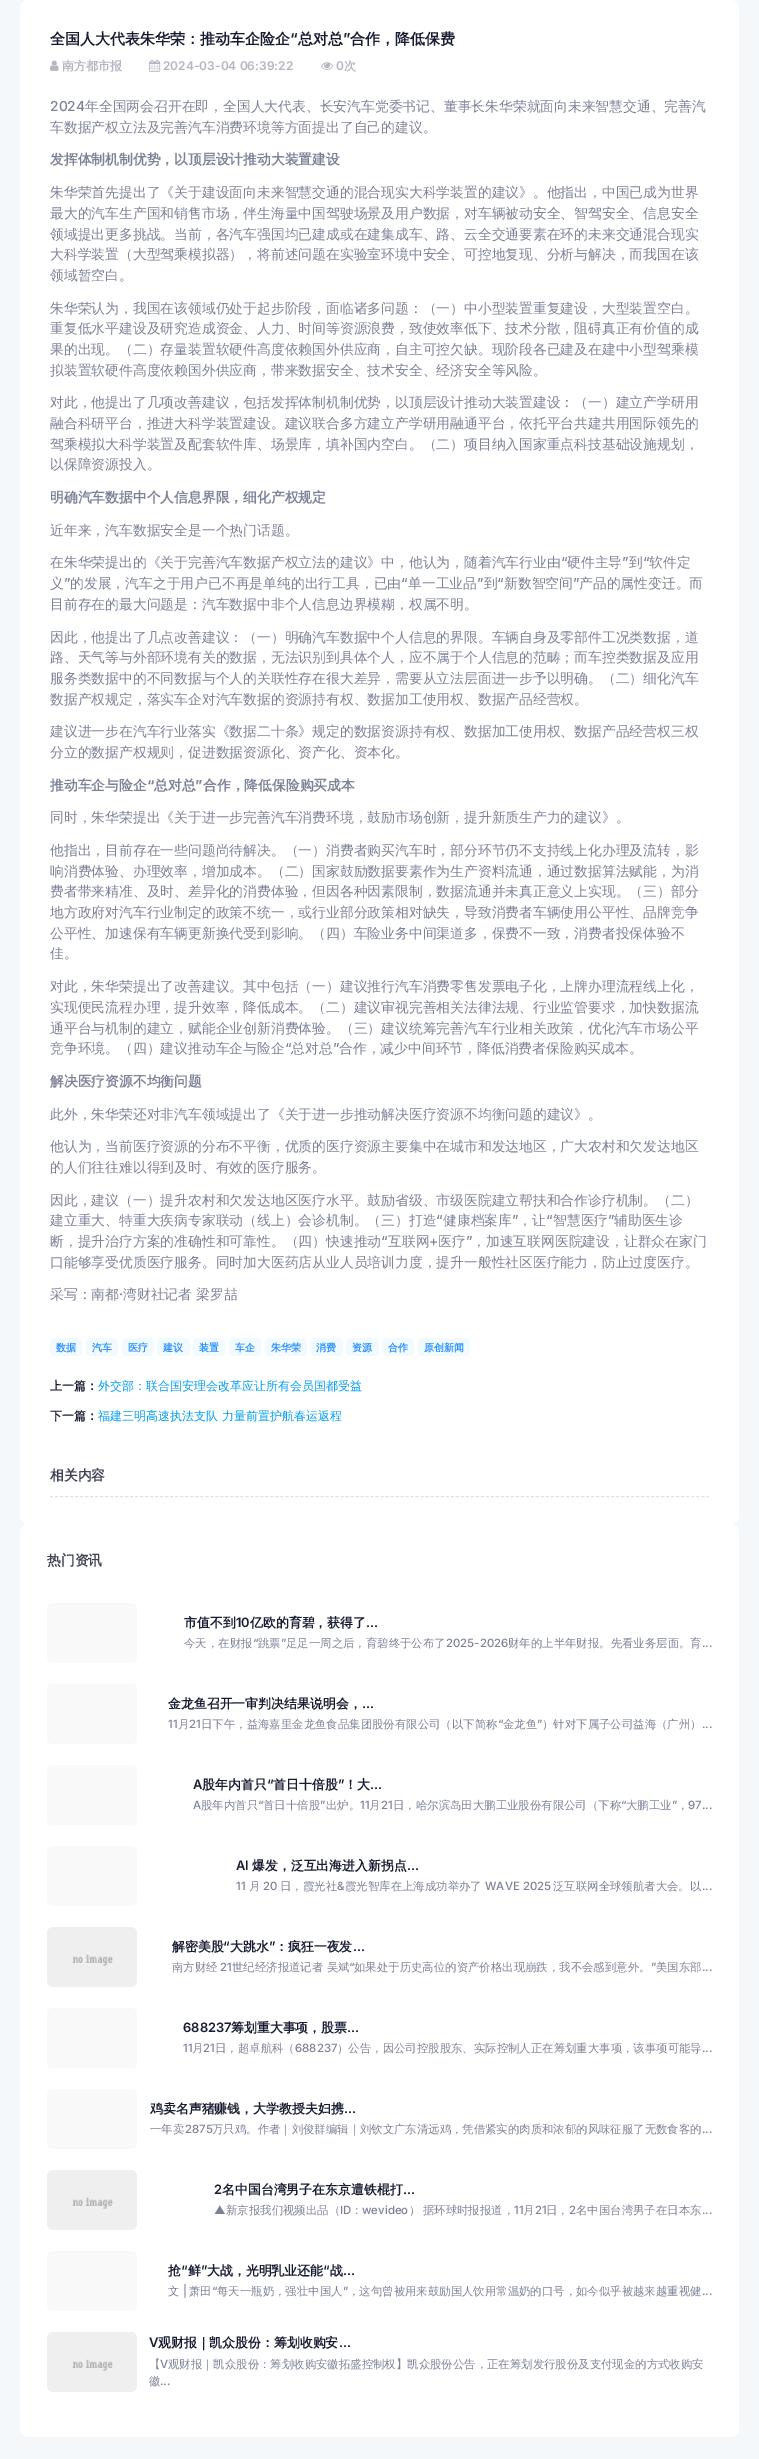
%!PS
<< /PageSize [759 2459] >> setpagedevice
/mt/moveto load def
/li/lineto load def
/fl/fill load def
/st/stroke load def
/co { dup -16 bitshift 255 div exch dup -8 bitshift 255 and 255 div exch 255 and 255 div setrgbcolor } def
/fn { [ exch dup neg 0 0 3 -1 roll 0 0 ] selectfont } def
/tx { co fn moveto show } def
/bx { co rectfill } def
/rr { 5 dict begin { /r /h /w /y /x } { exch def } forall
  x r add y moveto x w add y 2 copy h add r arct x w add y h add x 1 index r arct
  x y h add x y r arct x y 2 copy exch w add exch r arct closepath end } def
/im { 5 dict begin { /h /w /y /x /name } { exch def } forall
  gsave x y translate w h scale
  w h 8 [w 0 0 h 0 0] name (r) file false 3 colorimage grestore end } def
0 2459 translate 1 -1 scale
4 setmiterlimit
0 0 759 2459 16#F5F8FA bx
16#FFFFFF co
20 0 719 1524 8 rr fl
(media/1.raw) 50 60 9 11 im
(media/2.raw) 149 59 12 13 im
(media/3.raw) 321 62 12 8 im
16#F1FAFF co
50 1338 32 18 5 rr fl
86 1338 32 18 5 rr fl
122 1338 32 18 5 rr fl
157 1338 33 18 5 rr fl
193 1338 32 18 5 rr fl
229 1338 32 18 5 rr fl
265 1338 42 18 5 rr fl
310 1338 33 18 5 rr fl
346 1338 33 18 5 rr fl
382 1338 32 18 5 rr fl
418 1338 52 18 5 rr fl
16#E1E3EA co
[3 2.01] 0 setdash
50 1496.5 mt 709 1496.5 li st
16#FFFFFF co
20 1524 719 913 8 rr fl
16#F9F9F9 co
47 1603 90 60 6 rr fl
47 1684 90 60 6 rr fl
47 1765 90 60 6 rr fl
47 1846 90 60 6 rr fl
(media/4.raw) 47 1927 90 60 im
47 2008 90 60 6 rr fl
47 2089 90 60 6 rr fl
(media/4.raw) 47 2170 90 60 im
47 2251 90 60 6 rr fl
(media/4.raw) 47 2332 90 60 im
(全国人大代表朱华荣：推动车企险企) 50 44 /WenQuanYiZenHei-Bold 15 16#181C32 tx
(“) 290 44 /Inter-SemiBold 15 16#181C32 tx
(总对总) 298 44 /WenQuanYiZenHei-Bold 15 16#181C32 tx
(”) 343 44 /Inter-SemiBold 15 16#181C32 tx
(合作，降低保费) 350 44 /WenQuanYiZenHei-Bold 15 16#181C32 tx
(南方都市报) 62 70 /WenQuanYiZenHei-Bold 12 16#B5B5C3 tx
(2024-03-04 06:39:22) 163 70 /Inter-SemiBold 12 16#B5B5C3 tx
(0) 336 70 /Inter-SemiBold 12 16#B5B5C3 tx
(次) 344 70 /WenQuanYiZenHei-Bold 12 16#B5B5C3 tx
(2024) 50 111 /Inter-Medium 13.8 16#7E8299 tx
(年全国两会召开在即，全国人大代表、长安汽车党委书记、董事长朱华荣就面向未来智慧交通、完善汽) 85 111 /WenQuanYiZenHei-Medium 13.8 16#7E8299 tx
(车数据产权立法及完善汽车消费环境等方面提出了自己的建议。) 50 132 /WenQuanYiZenHei-Medium 13.8 16#7E8299 tx
(发挥体制机制优势，以顶层设计推动大装置建设) 50 164 /WenQuanYiZenHei-Bold 13.8 16#7E8299 tx
(朱华荣首先提出了《关于建设面向未来智慧交通的混合现实大科学装置的建议》。他指出，中国已成为世界) 50 197 /WenQuanYiZenHei-Medium 13.8 16#7E8299 tx
(最大的汽车生产国和销售市场，伴生海量中国驾驶场景及用户数据，对车辆被动安全、智驾安全、信息安全) 50 218 /WenQuanYiZenHei-Medium 13.8 16#7E8299 tx
(领域提出更多挑战。当前，各汽车强国均已建成或在建集成车、路、云全交通要素在环的未来交通混合现实) 50 239 /WenQuanYiZenHei-Medium 13.8 16#7E8299 tx
(大科学装置（大型驾乘模拟器），将前述问题在实验室环境中安全、可控地复现、分析与解决，而我国在该) 50 259 /WenQuanYiZenHei-Medium 13.8 16#7E8299 tx
(领域暂空白。) 50 280 /WenQuanYiZenHei-Medium 13.8 16#7E8299 tx
(朱华荣认为，我国在该领域仍处于起步阶段，面临诸多问题：（一）中小型装置重复建设，大型装置空白。) 50 313 /WenQuanYiZenHei-Medium 13.8 16#7E8299 tx
(重复低水平建设及研究造成资金、人力、时间等资源浪费，致使效率低下、技术分散，阻碍真正有价值的成) 50 333 /WenQuanYiZenHei-Medium 13.8 16#7E8299 tx
(果的出现。（二）存量装置软硬件高度依赖国外供应商，自主可控欠缺。现阶段各已建及在建中小型驾乘模) 50 354 /WenQuanYiZenHei-Medium 13.8 16#7E8299 tx
(拟装置软硬件高度依赖国外供应商，带来数据安全、技术安全、经济安全等风险。) 50 375 /WenQuanYiZenHei-Medium 13.8 16#7E8299 tx
(对此，他提出了几项改善建议，包括发挥体制机制优势，以顶层设计推动大装置建设：（一）建立产学研用) 50 407 /WenQuanYiZenHei-Medium 13.8 16#7E8299 tx
(融合科研平台，推进大科学装置建设。建议联合多方建立产学研用融通平台，依托平台共建共用国际领先的) 50 428 /WenQuanYiZenHei-Medium 13.8 16#7E8299 tx
(驾乘模拟大科学装置及配套软件库、场景库，填补国内空白。（二）项目纳入国家重点科技基础设施规划，) 50 449 /WenQuanYiZenHei-Medium 13.8 16#7E8299 tx
(以保障资源投入。) 50 469 /WenQuanYiZenHei-Medium 13.8 16#7E8299 tx
(明确汽车数据中个人信息界限，细化产权规定) 50 502 /WenQuanYiZenHei-Bold 13.8 16#7E8299 tx
(近年来，汽车数据安全是一个热门话题。) 50 535 /WenQuanYiZenHei-Medium 13.8 16#7E8299 tx
(在朱华荣提出的《关于完善汽车数据产权立法的建议》中，他认为，随着汽车行业由) 50 567 /WenQuanYiZenHei-Medium 13.8 16#7E8299 tx
(“) 561 567 /Inter-Medium 13.8 16#7E8299 tx
(硬件主导) 567 567 /WenQuanYiZenHei-Medium 13.8 16#7E8299 tx
(”) 622 567 /Inter-Medium 13.8 16#7E8299 tx
(到) 629 567 /WenQuanYiZenHei-Medium 13.8 16#7E8299 tx
(“) 643 567 /Inter-Medium 13.8 16#7E8299 tx
(软件定) 649 567 /WenQuanYiZenHei-Medium 13.8 16#7E8299 tx
(义) 50 588 /WenQuanYiZenHei-Medium 13.8 16#7E8299 tx
(”) 64 588 /Inter-Medium 13.8 16#7E8299 tx
(的发展，汽车之于用户已不再是单纯的出行工具，已由) 70 588 /WenQuanYiZenHei-Medium 13.8 16#7E8299 tx
(“) 401 588 /Inter-Medium 13.8 16#7E8299 tx
(单一工业品) 408 588 /WenQuanYiZenHei-Medium 13.8 16#7E8299 tx
(”) 477 588 /Inter-Medium 13.8 16#7E8299 tx
(到) 484 588 /WenQuanYiZenHei-Medium 13.8 16#7E8299 tx
(“) 497 588 /Inter-Medium 13.8 16#7E8299 tx
(新数智空间) 504 588 /WenQuanYiZenHei-Medium 13.8 16#7E8299 tx
(”) 573 588 /Inter-Medium 13.8 16#7E8299 tx
(产品的属性变迁。而) 579 588 /WenQuanYiZenHei-Medium 13.8 16#7E8299 tx
(目前存在的最大问题是：汽车数据中非个人信息边界模糊，权属不明。) 50 609 /WenQuanYiZenHei-Medium 13.8 16#7E8299 tx
(因此，他提出了几点改善建议：（一）明确汽车数据中个人信息的界限。车辆自身及零部件工况类数据，道) 50 642 /WenQuanYiZenHei-Medium 13.8 16#7E8299 tx
(路、天气等与外部环境有关的数据，无法识别到具体个人，应不属于个人信息的范畴；而车控类数据及应用) 50 662 /WenQuanYiZenHei-Medium 13.8 16#7E8299 tx
(服务类数据中的不同数据与个人的关联性存在很大差异，需要从立法层面进一步予以明确。（二）细化汽车) 50 683 /WenQuanYiZenHei-Medium 13.8 16#7E8299 tx
(数据产权规定，落实车企对汽车数据的资源持有权、数据加工使用权、数据产品经营权。) 50 704 /WenQuanYiZenHei-Medium 13.8 16#7E8299 tx
(建议进一步在汽车行业落实《数据二十条》规定的数据资源持有权、数据加工使用权、数据产品经营权三权) 50 736 /WenQuanYiZenHei-Medium 13.8 16#7E8299 tx
(分立的数据产权规则，促进数据资源化、资产化、资本化。) 50 757 /WenQuanYiZenHei-Medium 13.8 16#7E8299 tx
(推动车企与险企) 50 790 /WenQuanYiZenHei-Bold 13.8 16#7E8299 tx
(“) 147 790 /Inter-Bold 13.8 16#7E8299 tx
(总对总) 154 790 /WenQuanYiZenHei-Bold 13.8 16#7E8299 tx
(”) 195 790 /Inter-Bold 13.8 16#7E8299 tx
(合作，降低保险购买成本) 203 790 /WenQuanYiZenHei-Bold 13.8 16#7E8299 tx
(同时，朱华荣提出《关于进一步完善汽车消费环境，鼓励市场创新，提升新质生产力的建议》。) 50 822 /WenQuanYiZenHei-Medium 13.8 16#7E8299 tx
(他指出，目前存在一些问题尚待解决。（一）消费者购买汽车时，部分环节仍不支持线上化办理及流转，影) 50 855 /WenQuanYiZenHei-Medium 13.8 16#7E8299 tx
(响消费体验、办理效率，增加成本。（二）国家鼓励数据要素作为生产资料流通，通过数据算法赋能，为消) 50 876 /WenQuanYiZenHei-Medium 13.8 16#7E8299 tx
(费者带来精准、及时、差异化的消费体验，但因各种因素限制，数据流通并未真正意义上实现。（三）部分) 50 896 /WenQuanYiZenHei-Medium 13.8 16#7E8299 tx
(地方政府对汽车行业制定的政策不统一，或行业部分政策相对缺失，导致消费者车辆使用公平性、品牌竞争) 50 917 /WenQuanYiZenHei-Medium 13.8 16#7E8299 tx
(公平性、加速保有车辆更新换代受到影响。（四）车险业务中间渠道多，保费不一致，消费者投保体验不) 50 938 /WenQuanYiZenHei-Medium 13.8 16#7E8299 tx
(佳。) 50 958 /WenQuanYiZenHei-Medium 13.8 16#7E8299 tx
(对此，朱华荣提出了改善建议。其中包括（一）建议推行汽车消费零售发票电子化，上牌办理流程线上化，) 50 991 /WenQuanYiZenHei-Medium 13.8 16#7E8299 tx
(实现便民流程办理，提升效率，降低成本。（二）建议审视完善相关法律法规、行业监管要求，加快数据流) 50 1012 /WenQuanYiZenHei-Medium 13.8 16#7E8299 tx
(通平台与机制的建立，赋能企业创新消费体验。（三）建议统筹完善汽车行业相关政策，优化汽车市场公平) 50 1033 /WenQuanYiZenHei-Medium 13.8 16#7E8299 tx
(竞争环境。（四）建议推动车企与险企) 50 1053 /WenQuanYiZenHei-Medium 13.8 16#7E8299 tx
(“) 285 1053 /Inter-Medium 13.8 16#7E8299 tx
(总对总) 291 1053 /WenQuanYiZenHei-Medium 13.8 16#7E8299 tx
(”) 333 1053 /Inter-Medium 13.8 16#7E8299 tx
(合作，减少中间环节，降低消费者保险购买成本。) 339 1053 /WenQuanYiZenHei-Medium 13.8 16#7E8299 tx
(解决医疗资源不均衡问题) 50 1086 /WenQuanYiZenHei-Bold 13.8 16#7E8299 tx
(此外，朱华荣还对非汽车领域提出了《关于进一步推动解决医疗资源不均衡问题的建议》。) 50 1119 /WenQuanYiZenHei-Medium 13.8 16#7E8299 tx
(他认为，当前医疗资源的分布不平衡，优质的医疗资源主要集中在城市和发达地区，广大农村和欠发达地区) 50 1151 /WenQuanYiZenHei-Medium 13.8 16#7E8299 tx
(的人们往往难以得到及时、有效的医疗服务。) 50 1172 /WenQuanYiZenHei-Medium 13.8 16#7E8299 tx
(因此，建议（一）提升农村和欠发达地区医疗水平。鼓励省级、市级医院建立帮扶和合作诊疗机制。（二）) 50 1205 /WenQuanYiZenHei-Medium 13.8 16#7E8299 tx
(建立重大、特重大疾病专家联动（线上）会诊机制。（三）打造) 50 1225 /WenQuanYiZenHei-Medium 13.8 16#7E8299 tx
(“) 436 1225 /Inter-Medium 13.8 16#7E8299 tx
(健康档案库) 443 1225 /WenQuanYiZenHei-Medium 13.8 16#7E8299 tx
(”) 512 1225 /Inter-Medium 13.8 16#7E8299 tx
(，让) 518 1225 /WenQuanYiZenHei-Medium 13.8 16#7E8299 tx
(“) 546 1225 /Inter-Medium 13.8 16#7E8299 tx
(智慧医疗) 553 1225 /WenQuanYiZenHei-Medium 13.8 16#7E8299 tx
(”) 608 1225 /Inter-Medium 13.8 16#7E8299 tx
(辅助医生诊) 614 1225 /WenQuanYiZenHei-Medium 13.8 16#7E8299 tx
(断，提升治疗方案的准确性和可靠性。（四）快速推动) 50 1246 /WenQuanYiZenHei-Medium 13.8 16#7E8299 tx
(“) 381 1246 /Inter-Medium 13.8 16#7E8299 tx
(互联网) 388 1246 /WenQuanYiZenHei-Medium 13.8 16#7E8299 tx
(医疗) 438 1246 /WenQuanYiZenHei-Medium 13.8 16#7E8299 tx
(”) 466 1246 /Inter-Medium 13.8 16#7E8299 tx
(，加速互联网医院建设，让群众在家门) 472 1246 /WenQuanYiZenHei-Medium 13.8 16#7E8299 tx
(+) 429 1246 /Inter-Medium 13.8 16#7E8299 tx
(口能够享受优质医疗服务。同时加大医药店从业人员培训力度，提升一般性社区医疗能力，防止过度医疗。) 50 1267 /WenQuanYiZenHei-Medium 13.8 16#7E8299 tx
(采写：南都) 50 1299 /WenQuanYiZenHei-Medium 13.8 16#7E8299 tx
(·) 119 1299 /Inter-Medium 13.8 16#7E8299 tx
(湾财社记者 梁罗喆) 123 1299 /WenQuanYiZenHei-Medium 13.8 16#7E8299 tx
(数据) 56 1351 /WenQuanYiZenHei-Bold 10 16#2890FF tx
(汽车) 92 1351 /WenQuanYiZenHei-Bold 10 16#2890FF tx
(医疗) 128 1351 /WenQuanYiZenHei-Bold 10 16#2890FF tx
(建议) 163 1351 /WenQuanYiZenHei-Bold 10 16#2890FF tx
(装置) 199 1351 /WenQuanYiZenHei-Bold 10 16#2890FF tx
(车企) 235 1351 /WenQuanYiZenHei-Bold 10 16#2890FF tx
(朱华荣) 271 1351 /WenQuanYiZenHei-Bold 10 16#2890FF tx
(消费) 316 1351 /WenQuanYiZenHei-Bold 10 16#2890FF tx
(资源) 352 1351 /WenQuanYiZenHei-Bold 10 16#2890FF tx
(合作) 388 1351 /WenQuanYiZenHei-Bold 10 16#2890FF tx
(原创新闻) 424 1351 /WenQuanYiZenHei-Bold 10 16#2890FF tx
(上一篇：) 50 1390 /WenQuanYiZenHei-Bold 12 16#181C32 tx
(外交部：联合国安理会改革应让所有会员国都受益) 98 1390 /WenQuanYiZenHei-Medium 12 16#009EF7 tx
(下一篇：) 50 1420 /WenQuanYiZenHei-Bold 12 16#181C32 tx
(福建三明高速执法支队 力量前置护航春运返程) 98 1420 /WenQuanYiZenHei-Medium 12 16#009EF7 tx
(相关内容) 50 1480 /WenQuanYiZenHei-Bold 13.8 16#3F4254 tx
(热门资讯) 47 1565 /WenQuanYiZenHei-Bold 13.8 16#3F4254 tx
(市值不到) 184 1627 /WenQuanYiZenHei-Bold 12.9 16#181C32 tx
(10) 236 1627 /Inter-SemiBold 12.9 16#181C32 tx
(亿欧的育碧，获得了) 250 1627 /WenQuanYiZenHei-Bold 12.9 16#181C32 tx
(...) 366 1627 /Inter-SemiBold 12.9 16#181C32 tx
(今天，在财报) 184 1647 /WenQuanYiZenHei-Medium 11.4 16#7E8299 tx
(“) 253 1647 /Inter-Medium 11.4 16#7E8299 tx
(跳票) 258 1647 /WenQuanYiZenHei-Medium 11.4 16#7E8299 tx
(”) 281 1647 /Inter-Medium 11.4 16#7E8299 tx
(足足一周之后，育碧终于公布了) 286 1647 /WenQuanYiZenHei-Medium 11.4 16#7E8299 tx
(2025-2026) 446 1647 /Inter-Medium 11.4 16#7E8299 tx
(财年的上半年财报。先看业务层面。育) 508 1647 /WenQuanYiZenHei-Medium 11.4 16#7E8299 tx
(...) 702 1647 /Inter-Medium 11.4 16#7E8299 tx
(金龙鱼召开一审判决结果说明会，) 168 1708 /WenQuanYiZenHei-Bold 12.9 16#181C32 tx
(...) 362 1708 /Inter-SemiBold 12.9 16#181C32 tx
(11) 168 1728 /Inter-Medium 11.4 16#7E8299 tx
(月) 178 1728 /WenQuanYiZenHei-Medium 11.4 16#7E8299 tx
(21) 189 1728 /Inter-Medium 11.4 16#7E8299 tx
(日下午，益海嘉里金龙鱼食品集团股份有限公司（以下简称) 201 1728 /WenQuanYiZenHei-Medium 11.4 16#7E8299 tx
(“) 498 1728 /Inter-Medium 11.4 16#7E8299 tx
(金龙鱼) 503 1728 /WenQuanYiZenHei-Medium 11.4 16#7E8299 tx
(”) 537 1728 /Inter-Medium 11.4 16#7E8299 tx
(）针对下属子公司益海（广州）) 542 1728 /WenQuanYiZenHei-Medium 11.4 16#7E8299 tx
(...) 702 1728 /Inter-Medium 11.4 16#7E8299 tx
(A) 193 1789 /Inter-SemiBold 12.9 16#181C32 tx
(股年内首只) 202 1789 /WenQuanYiZenHei-Bold 12.9 16#181C32 tx
(“) 267 1789 /Inter-SemiBold 12.9 16#181C32 tx
(首日十倍股) 273 1789 /WenQuanYiZenHei-Bold 12.9 16#181C32 tx
(”) 338 1789 /Inter-SemiBold 12.9 16#181C32 tx
(！大) 344 1789 /WenQuanYiZenHei-Bold 12.9 16#181C32 tx
(...) 370 1789 /Inter-SemiBold 12.9 16#181C32 tx
(A) 193 1809 /Inter-Medium 11.4 16#7E8299 tx
(股年内首只) 201 1809 /WenQuanYiZenHei-Medium 11.4 16#7E8299 tx
(“) 258 1809 /Inter-Medium 11.4 16#7E8299 tx
(首日十倍股) 263 1809 /WenQuanYiZenHei-Medium 11.4 16#7E8299 tx
(”) 320 1809 /Inter-Medium 11.4 16#7E8299 tx
(出炉。) 326 1809 /WenQuanYiZenHei-Medium 11.4 16#7E8299 tx
(11) 360 1809 /Inter-Medium 11.4 16#7E8299 tx
(月) 369 1809 /WenQuanYiZenHei-Medium 11.4 16#7E8299 tx
(21) 381 1809 /Inter-Medium 11.4 16#7E8299 tx
(日，哈尔滨岛田大鹏工业股份有限公司（下称) 393 1809 /WenQuanYiZenHei-Medium 11.4 16#7E8299 tx
(“) 621 1809 /Inter-Medium 11.4 16#7E8299 tx
(大鹏工业) 626 1809 /WenQuanYiZenHei-Medium 11.4 16#7E8299 tx
(”) 672 1809 /Inter-Medium 11.4 16#7E8299 tx
(，) 677 1809 /WenQuanYiZenHei-Medium 11.4 16#7E8299 tx
(97...) 688 1809 /Inter-Medium 11.4 16#7E8299 tx
(AI) 236 1870 /Inter-SemiBold 12.9 16#181C32 tx
(爆发，泛互出海进入新拐点) 252 1870 /WenQuanYiZenHei-Bold 12.9 16#181C32 tx
(...) 407 1870 /Inter-SemiBold 12.9 16#181C32 tx
(11) 236 1890 /Inter-Medium 11.4 16#7E8299 tx
(月) 249 1890 /WenQuanYiZenHei-Medium 11.4 16#7E8299 tx
(20) 263 1890 /Inter-Medium 11.4 16#7E8299 tx
(日，霞光社) 280 1890 /WenQuanYiZenHei-Medium 11.4 16#7E8299 tx
(&) 337 1890 /Inter-Medium 11.4 16#7E8299 tx
(霞光智库在上海成功举办了) 345 1890 /WenQuanYiZenHei-Medium 11.4 16#7E8299 tx
(WAVE 2025) 485 1890 /Inter-Medium 11.4 16#7E8299 tx
(泛互联网全球领航者大会。以) 553 1890 /WenQuanYiZenHei-Medium 11.4 16#7E8299 tx
(...) 702 1890 /Inter-Medium 11.4 16#7E8299 tx
(解密美股) 172 1951 /WenQuanYiZenHei-Bold 12.9 16#181C32 tx
(“) 223 1951 /Inter-SemiBold 12.9 16#181C32 tx
(大跳水) 230 1951 /WenQuanYiZenHei-Bold 12.9 16#181C32 tx
(”) 269 1951 /Inter-SemiBold 12.9 16#181C32 tx
(：疯狂一夜发) 275 1951 /WenQuanYiZenHei-Bold 12.9 16#181C32 tx
(...) 353 1951 /Inter-SemiBold 12.9 16#181C32 tx
(南方财经) 172 1971 /WenQuanYiZenHei-Medium 11.4 16#7E8299 tx
(21) 220 1971 /Inter-Medium 11.4 16#7E8299 tx
(世纪经济报道记者 吴斌) 232 1971 /WenQuanYiZenHei-Medium 11.4 16#7E8299 tx
(“) 349 1971 /Inter-Medium 11.4 16#7E8299 tx
(如果处于历史高位的资产价格出现崩跌，我不会感到意外。) 354 1971 /WenQuanYiZenHei-Medium 11.4 16#7E8299 tx
(”) 651 1971 /Inter-Medium 11.4 16#7E8299 tx
(美国东部) 656 1971 /WenQuanYiZenHei-Medium 11.4 16#7E8299 tx
(...) 702 1971 /Inter-Medium 11.4 16#7E8299 tx
(688237) 183 2032 /Inter-SemiBold 12.9 16#181C32 tx
(筹划重大事项，股票) 231 2032 /WenQuanYiZenHei-Bold 12.9 16#181C32 tx
(...) 347 2032 /Inter-SemiBold 12.9 16#181C32 tx
(11) 183 2052 /Inter-Medium 11.4 16#7E8299 tx
(月) 192 2052 /WenQuanYiZenHei-Medium 11.4 16#7E8299 tx
(21) 203 2052 /Inter-Medium 11.4 16#7E8299 tx
(日，超卓航科（) 215 2052 /WenQuanYiZenHei-Medium 11.4 16#7E8299 tx
(688237) 295 2052 /Inter-Medium 11.4 16#7E8299 tx
(）公告，因公司控股股东、实际控制人正在筹划重大事项，该事项可能导) 337 2052 /WenQuanYiZenHei-Medium 11.4 16#7E8299 tx
(...) 702 2052 /Inter-Medium 11.4 16#7E8299 tx
(鸡卖名声猪赚钱，大学教授夫妇携) 150 2113 /WenQuanYiZenHei-Bold 12.9 16#181C32 tx
(...) 344 2113 /Inter-SemiBold 12.9 16#181C32 tx
(一年卖) 150 2133 /WenQuanYiZenHei-Medium 11.4 16#7E8299 tx
(2875) 185 2133 /Inter-Medium 11.4 16#7E8299 tx
(万只鸡。作者｜刘俊群编辑｜刘钦文广东清远鸡，凭借紧实的肉质和浓郁的风味征服了无数食客的) 212 2133 /WenQuanYiZenHei-Medium 11.4 16#7E8299 tx
(...) 702 2133 /Inter-Medium 11.4 16#7E8299 tx
(2) 214 2194 /Inter-SemiBold 12.9 16#181C32 tx
(名中国台湾男子在东京遭铁棍打) 222 2194 /WenQuanYiZenHei-Bold 12.9 16#181C32 tx
(...) 403 2194 /Inter-SemiBold 12.9 16#181C32 tx
(▲) 214 2214 /Inter-Medium 11.4 16#7E8299 tx
(新京报我们视频出品（) 226 2214 /WenQuanYiZenHei-Medium 11.4 16#7E8299 tx
(ID) 340 2214 /Inter-Medium 11.4 16#7E8299 tx
(：) 351 2214 /WenQuanYiZenHei-Medium 11.4 16#7E8299 tx
(wevideo) 362 2214 /Inter-Medium 11.4 16#7E8299 tx
/WenQuanYiZenHei-Medium 11.4 fn
409 2214 mt -1 0 32 (） 据环球时报报道，) widthshow
(11) 514 2214 /Inter-Medium 11.4 16#7E8299 tx
(月) 523 2214 /WenQuanYiZenHei-Medium 11.4 16#7E8299 tx
(21) 535 2214 /Inter-Medium 11.4 16#7E8299 tx
(日，) 546 2214 /WenQuanYiZenHei-Medium 11.4 16#7E8299 tx
(2) 569 2214 /Inter-Medium 11.4 16#7E8299 tx
(名中国台湾男子在日本东) 576 2214 /WenQuanYiZenHei-Medium 11.4 16#7E8299 tx
(...) 702 2214 /Inter-Medium 11.4 16#7E8299 tx
(抢) 168 2275 /WenQuanYiZenHei-Bold 12.9 16#181C32 tx
(“) 181 2275 /Inter-SemiBold 12.9 16#181C32 tx
(鲜) 188 2275 /WenQuanYiZenHei-Bold 12.9 16#181C32 tx
(”) 201 2275 /Inter-SemiBold 12.9 16#181C32 tx
(大战，光明乳业还能) 207 2275 /WenQuanYiZenHei-Bold 12.9 16#181C32 tx
(“) 323 2275 /Inter-SemiBold 12.9 16#181C32 tx
(战) 330 2275 /WenQuanYiZenHei-Bold 12.9 16#181C32 tx
(...) 343 2275 /Inter-SemiBold 12.9 16#181C32 tx
(文) 168 2295 /WenQuanYiZenHei-Medium 11.4 16#7E8299 tx
(|) 183 2295 /Inter-Medium 11.4 16#7E8299 tx
(萧田) 189 2295 /WenQuanYiZenHei-Medium 11.4 16#7E8299 tx
(“) 212 2295 /Inter-Medium 11.4 16#7E8299 tx
(每天一瓶奶，强壮中国人) 217 2295 /WenQuanYiZenHei-Medium 11.4 16#7E8299 tx
(”) 343 2295 /Inter-Medium 11.4 16#7E8299 tx
(，这句曾被用来鼓励国人饮用常温奶的口号，如今似乎被越来越重视健) 348 2295 /WenQuanYiZenHei-Medium 11.4 16#7E8299 tx
(...) 702 2295 /Inter-Medium 11.4 16#7E8299 tx
(V) 149 2347 /Inter-SemiBold 12.9 16#181C32 tx
(观财报｜凯众股份：筹划收购安) 158 2347 /WenQuanYiZenHei-Bold 12.9 16#181C32 tx
(...) 339 2347 /Inter-SemiBold 12.9 16#181C32 tx
(【) 149 2368 /WenQuanYiZenHei-Medium 11.4 16#7E8299 tx
(V) 160 2368 /Inter-Medium 11.4 16#7E8299 tx
(观财报｜凯众股份：筹划收购安徽拓盛控制权】凯众股份公告，正在筹划发行股份及支付现金的方式收购安) 168 2368 /WenQuanYiZenHei-Medium 11.4 16#7E8299 tx
(徽) 149 2385 /WenQuanYiZenHei-Medium 11.4 16#7E8299 tx
(...) 160 2385 /Inter-Medium 11.4 16#7E8299 tx
showpage
